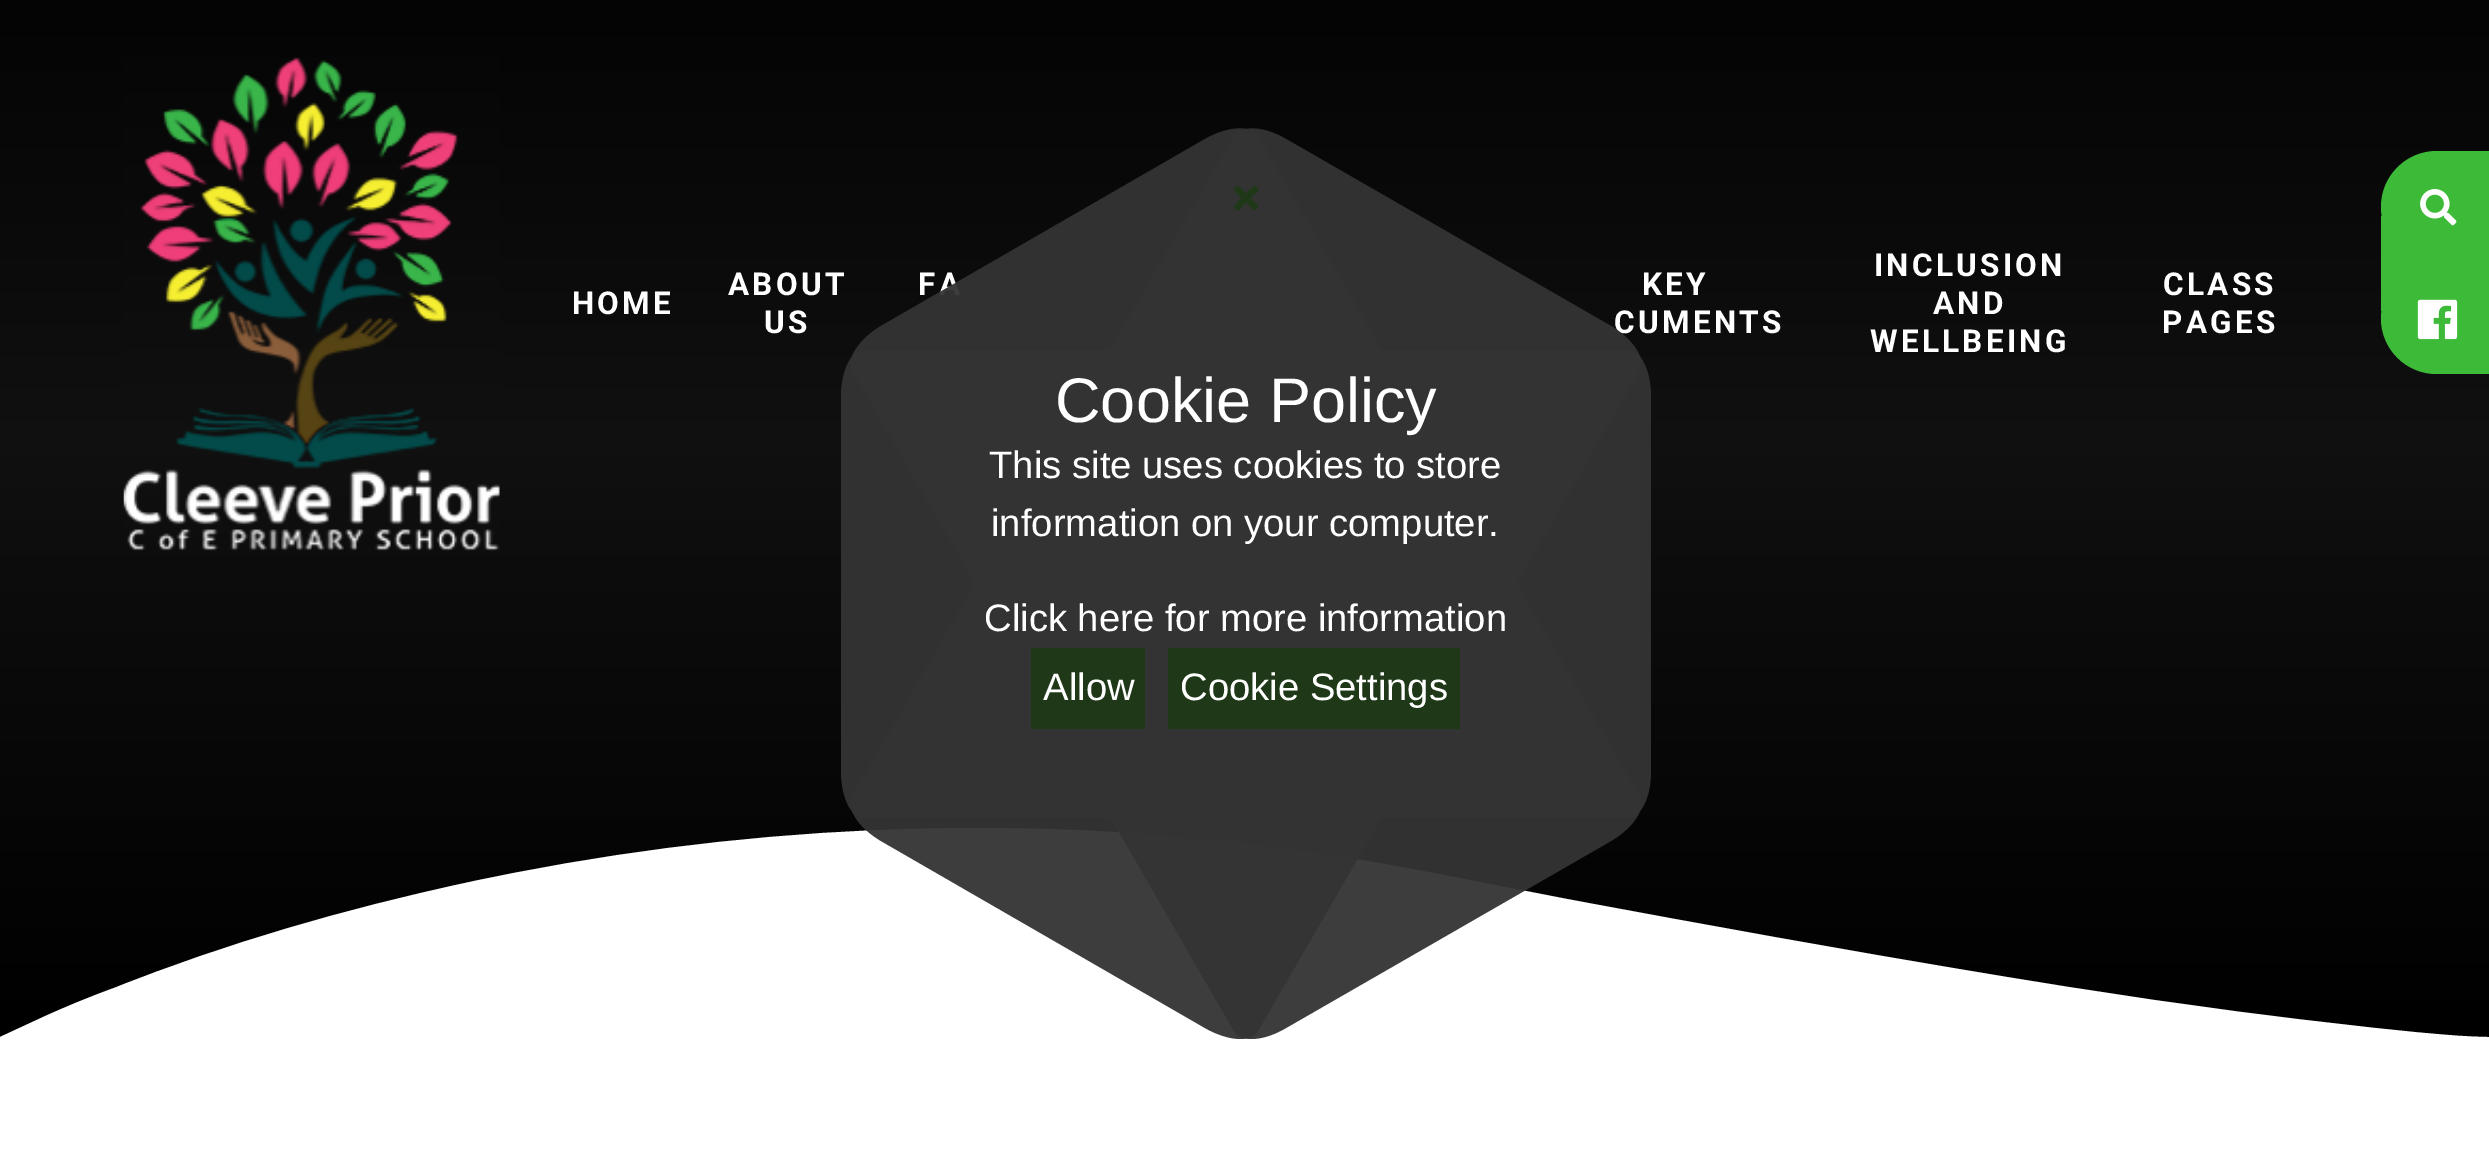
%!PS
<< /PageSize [2489 1162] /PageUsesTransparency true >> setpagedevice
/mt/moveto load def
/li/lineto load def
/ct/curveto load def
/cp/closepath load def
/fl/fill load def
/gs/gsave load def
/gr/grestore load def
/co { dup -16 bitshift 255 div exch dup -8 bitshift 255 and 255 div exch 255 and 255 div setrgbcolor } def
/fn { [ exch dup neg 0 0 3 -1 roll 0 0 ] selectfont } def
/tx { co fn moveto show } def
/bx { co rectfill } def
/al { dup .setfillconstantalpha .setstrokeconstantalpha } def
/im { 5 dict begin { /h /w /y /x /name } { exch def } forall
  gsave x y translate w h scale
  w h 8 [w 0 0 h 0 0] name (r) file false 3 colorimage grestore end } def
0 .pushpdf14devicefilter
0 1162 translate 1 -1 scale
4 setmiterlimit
0 0 2489 1162 16#FFFFFF bx
gs 0 0 mt 2489 0 li 2489 1037 li 0 1037 li cp clip newpath
<< /ShadingType 2 /ColorSpace /DeviceRGB /Coords [1245 0 1245 1046] /Extend [true true] /Function << /FunctionType 3 /Domain [0 1] /Functions [<< /FunctionType 2 /Domain [0 1] /C0 [.016 .016 .016] /C1 [.063 .063 .063] /N 1 >> << /FunctionType 2 /Domain [0 1] /C0 [.063 .063 .063] /C1 [0 0 0] /N 1 >>] /Bounds [.42] /Encode [0 1 0 1] >> >> shfill gr
16#E6E035 co
1012 548 mt 1013 542 1446 540 1446 540 ct 1456 540 1457 544 1457 550 ct 1457 556 1456 561 1445 561 ct 1445 561 1012 554 1012 548 ct cp fl
1468 540 mt 1473 540 1478 545 1478 551 ct 1478 552 li 1478 558 1473 562 1468 562 ct 1426 562 1393 558 1393 552 ct 1393 551 li 1393 545 1426 540 1468 540 ct cp fl
16#FFFFFF co
0 1049 mt 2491 1049 li 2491 1037 li 2469 1037 2447 1035 2425 1033 ct 2391 1030 2357 1026 2323 1022 ct 2209 1009 2096 992 1983 973 ct 1844 950 1706 925 1567 899 ct 1473 881 1380 861 1284 848 ct 1012 812 733 825 465 883 ct 345 909 227 943 114 988 ct 89 997 65 1007 41 1018 ct 0 1037 li cp fl
(media/1.raw) 123 57 377 494 im
gs
1121 338 150 11 rectclip
16#3DBA38 co
1120 342 mt 1121 338 1258 337 1258 337 ct 1261 337 1262 340 1262 343 ct 1262 346 1261 349 1260 350 ct 1248 350 li 1215 348 1120 344 1120 342 ct cp fl
gr
16#3DBA38 co
1268 337 mt 1272 337 li 1278 337 1282 340 1282 343 ct 1282 347 1278 349 1272 349 ct 1268 349 li 1229 349 1197 347 1197 343 ct 1197 340 1229 337 1268 337 ct cp fl
2381 216 56 95 16#3DBA38 bx
2437 151 mt 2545 151 li 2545 263 li 2437 263 li 2406 263 2381 238 2381 207 ct 2381 176 2406 151 2437 151 ct cp fl
(media/2.raw) 2420 189 37 37 im
2436.5 263 mt 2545 263 li 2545 374 li 2436.5 374 li 2406 374 2381 349 2381 318.5 ct 2381 288 2406 263 2436.5 263 ct cp fl
(media/3.raw) 2417 299 41 41 im
0.95 al
16#333333 co
1651 397 mt 1651 771 li 1651 797 1641 818 1628 818 ct 864 818 li 851 818 841 797 841 771 ct 841 397 li 841 371 851 350 864 350 ct 1628 350 li 1641 350 1651 371 1651 397 ct cp fl
/Roboto-Bold 31.5 fn
1 al
16#FFFFFF co
572 314 mt 3.25 0 (HOME) ashow
728 295 mt 3.25 0 (ABOUT) ashow
764 333 mt 3.25 0 (US) ashow
918 295 mt 3.25 0 (FA) ashow
1642 295 mt 3.25 0 (KEY) ashow
1614 333 mt 3.25 0 (CUMENTS) ashow
1874 276 mt 3.25 0 (INCLUSION) ashow
1933 314 mt 3.25 0 (AND) ashow
1870 352 mt 3.25 0 (WELLBEING) ashow
2163 295 mt 3.25 0 (CLASS) ashow
2162 333 mt 3.25 0 (PAGES) ashow
0.95 al
16#333333 co
1611 841 mt 1286 1028 li 1264 1041 1241 1043 1234 1031 ct 852 370 li 846 359 859 339 881 326 ct 1205 139 li 1228 126 1251 125 1258 136 ct 1640 797 li 1646 809 1633 828 1611 841 ct cp fl
1286 139 mt 1611 326 li 1633 339 1646 359 1640 370 ct 1258 1031 li 1251 1043 1228 1041 1205 1028 ct 881 841 li 859 828 846 809 852 797 ct 1234 136 li 1241 125 1264 126 1286 139 ct cp fl
1 al
(media/4.raw) 1233 185 26 26 im
(Cookie Policy) 1055 422 /LiberationSans-Regular 63 16#FFFFFF tx
(This site uses cookies to store) 989 478 /LiberationSans-Regular 38.25 16#FFFFFF tx
(information on your computer.) 991 536 /LiberationSans-Regular 38.25 16#FFFFFF tx
(Click here for more information) 984 631 /LiberationSans-Regular 38.25 16#FFFFFF tx
1031 648 114 81 16#1F3818 bx
(Allow) 1043 700 /LiberationSans-Regular 38.25 16#FFFFFF tx
1168 648 292 81 16#1F3818 bx
(Cookie Settings) 1180 700 /LiberationSans-Regular 38.25 16#FFFFFF tx
.poppdf14devicefilter showpage
